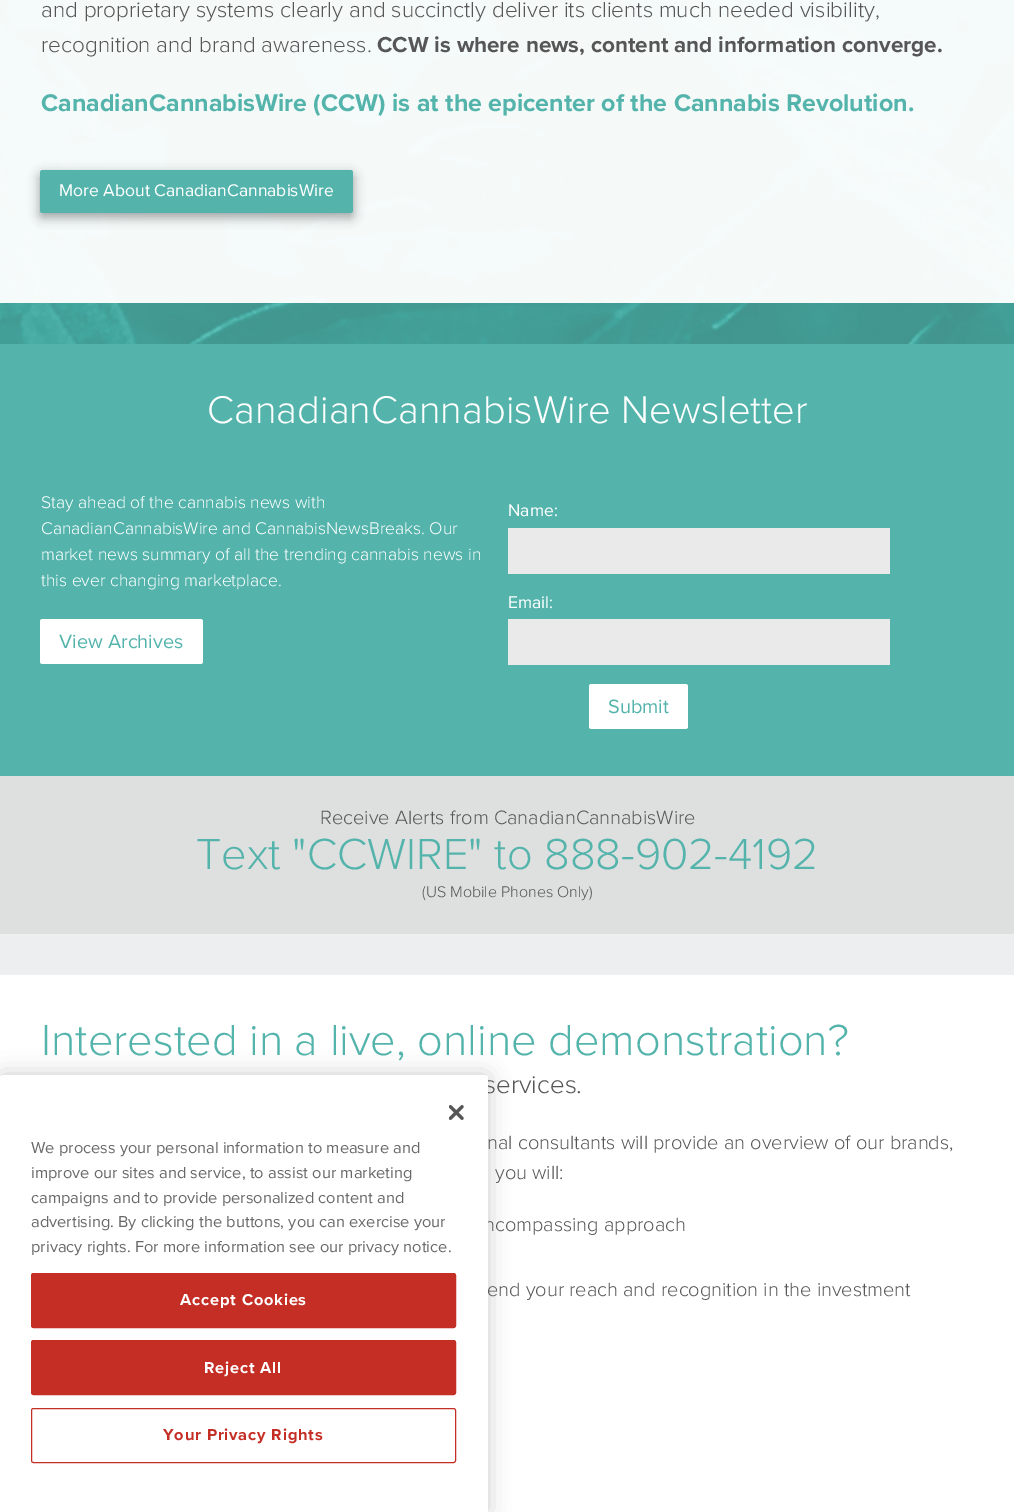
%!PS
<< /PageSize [1014 1512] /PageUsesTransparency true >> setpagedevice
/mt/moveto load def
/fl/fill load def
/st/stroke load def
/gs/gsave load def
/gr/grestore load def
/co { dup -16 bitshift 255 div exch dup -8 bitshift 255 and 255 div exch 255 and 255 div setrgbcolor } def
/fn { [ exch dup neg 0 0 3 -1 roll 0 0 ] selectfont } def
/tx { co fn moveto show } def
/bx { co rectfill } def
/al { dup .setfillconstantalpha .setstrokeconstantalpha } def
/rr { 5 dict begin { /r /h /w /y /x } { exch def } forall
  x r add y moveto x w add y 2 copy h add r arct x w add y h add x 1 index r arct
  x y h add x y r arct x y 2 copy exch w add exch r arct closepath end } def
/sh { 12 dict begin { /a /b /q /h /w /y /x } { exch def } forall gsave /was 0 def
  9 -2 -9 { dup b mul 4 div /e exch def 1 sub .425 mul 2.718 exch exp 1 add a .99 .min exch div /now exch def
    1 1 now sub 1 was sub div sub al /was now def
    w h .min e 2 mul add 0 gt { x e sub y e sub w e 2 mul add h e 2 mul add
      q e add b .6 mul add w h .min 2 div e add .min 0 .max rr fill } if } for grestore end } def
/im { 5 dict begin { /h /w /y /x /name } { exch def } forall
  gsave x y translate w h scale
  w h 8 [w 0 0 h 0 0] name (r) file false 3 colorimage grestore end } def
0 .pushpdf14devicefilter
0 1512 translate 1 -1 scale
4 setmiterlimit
0 0 1014 1512 16#FFFFFF bx
(media/1.raw) 0 0 1014 344 im
0.95 al
0 0 1014 303 16#FFFFFF bx
1 al
16#000000 co
40 174 313 42 2.5 6 .19 sh
40 175 313 43 2.5 5 .2 sh
16#54B4AC co
40 170 313 43 2.5 rr fl
0 344 1014 432 16#54B4AC bx
16#FFFFFF co
40 619 163 45 2.5 rr fl
508 528 382 46 16#EAEAEA bx
508 619 382 46 16#EAEAEA bx
16#FFFFFF co
589 684 99 45 2.5 rr fl
0 776 1014 158 16#DEDFDF bx
0 934 1014 41 16#ECEEEF bx
16#000000 co
0 1075 488 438 3 11 .2 sh
(and proprietary systems clearly and succinctly deliver its clients much needed visibility,) 41 17 /ProximaNova-Light 22.5 16#565656 tx
(recognition and brand awareness.) 41 52 /ProximaNova-Light 22.5 16#565656 tx
(CCW is where news, content and information converge.) 377 52 /ProximaNova-Bold 22.5 16#565656 tx
(CanadianCannabisWire \(CCW\) is at the epicenter of the Cannabis Revolution.) 41 111 /ProximaNova-Bold 25 16#54B4AC tx
(More About CanadianCannabisWire) 59 196 /ProximaNova-Regular 17.5 16#FFFFFF tx
(CanadianCannabisWire Newsletter) 207 423 /ProximaNova-Light 40 16#FFFFFF tx
(Stay ahead of the cannabis news with) 41 508 /ProximaNova-Light 17.5 16#FFFFFF tx
(CanadianCannabisWire and CannabisNewsBreaks. Our) 41 534 /ProximaNova-Light 17.5 16#FFFFFF tx
(market news summary of all the trending cannabis news in) 41 560 /ProximaNova-Light 17.5 16#FFFFFF tx
(this ever changing marketplace.) 41 586 /ProximaNova-Light 17.5 16#FFFFFF tx
(View Archives) 59 648 /ProximaNova-Regular 20 16#54B4AC tx
(Name:) 508 516 /ProximaNova-Regular 17.5 16#FFFFFF tx
(Email:) 508 608 /ProximaNova-Regular 17.5 16#FFFFFF tx
(Submit) 608 713 /ProximaNova-Regular 20 16#54B4AC tx
(Receive Alerts from CanadianCannabisWire) 320 824 /ProximaNova-Light 20 16#565656 tx
(Text "CCWIRE" to 888-902-4192) 196 869 /ProximaNova-Light 45 16#54B4AC tx
(\(US Mobile Phones Only\)) 422 897 /ProximaNova-Light 16 16#565656 tx
(Interested in a live, online demonstration?) 41 1055 /ProximaNova-Light 45 16#54B4AC tx
(services.) 484 1093 /ProximaNova-Light 26 16#565656 tx
(nal consultants will provide an overview of our brands,) 487 1149 /ProximaNova-Light 20 16#565656 tx
(you will:) 495 1179 /ProximaNova-Light 20 16#565656 tx
(ncompassing approach) 484 1231 /ProximaNova-Light 20 16#565656 tx
(end your reach and recognition in the investment) 487 1296 /ProximaNova-Light 20 16#565656 tx
16#FFFFFF co
0 1075 488 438 3 rr fl
(media/2.raw) 449 1105 15 15 im
(We process your personal information to measure and) 31 1153 /ProximaNova-Regular 16.4 16#696969 tx
(improve our sites and service, to assist our marketing) 31 1178 /ProximaNova-Regular 16.4 16#696969 tx
(campaigns and to provide personalized content and) 31 1203 /ProximaNova-Regular 16.4 16#696969 tx
(advertising. By clicking the buttons, you can exercise your) 31 1227 /ProximaNova-Regular 16.4 16#696969 tx
(privacy rights. For more information see our privacy notice.) 31 1252 /ProximaNova-Regular 16.4 16#696969 tx
16#C42E24 co
31.5 1273.5 424 54 2 rr gs fl gr
st
/ProximaNova-Bold 16.4 fn
16#FFFFFF co
180 1305 mt .8 0 (Accept Cookies) ashow
16#C42E24 co
31.5 1340.5 424 54 2 rr gs fl gr
st
16#FFFFFF co
204 1373 mt .8 0 (Reject All) ashow
16#C42E24 co
31.5 1408.5 424 54 2 rr st
163 1440 mt .8 0 (Your Privacy Rights) ashow
.poppdf14devicefilter showpage
